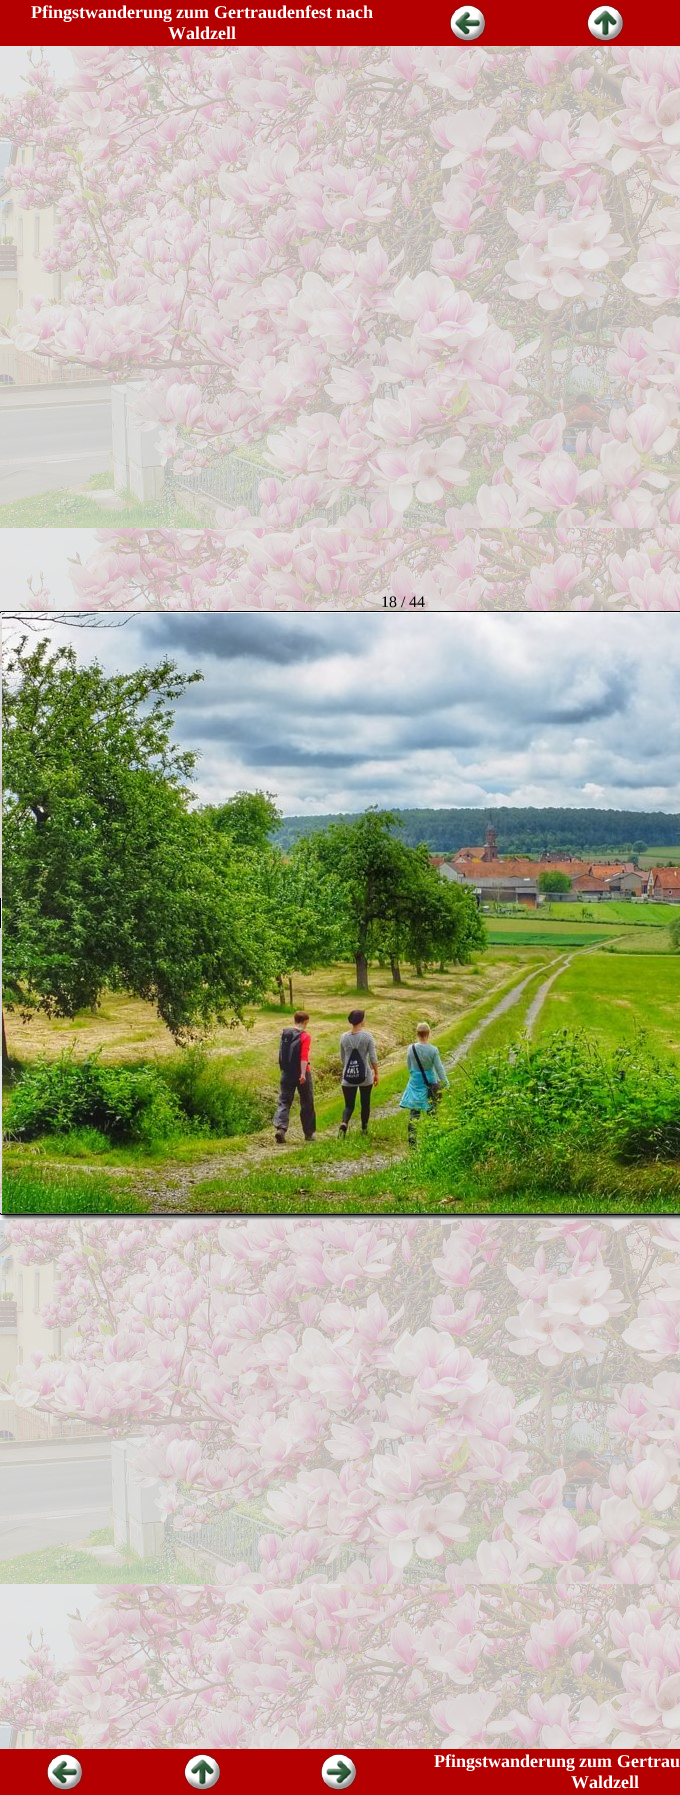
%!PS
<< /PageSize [680 1795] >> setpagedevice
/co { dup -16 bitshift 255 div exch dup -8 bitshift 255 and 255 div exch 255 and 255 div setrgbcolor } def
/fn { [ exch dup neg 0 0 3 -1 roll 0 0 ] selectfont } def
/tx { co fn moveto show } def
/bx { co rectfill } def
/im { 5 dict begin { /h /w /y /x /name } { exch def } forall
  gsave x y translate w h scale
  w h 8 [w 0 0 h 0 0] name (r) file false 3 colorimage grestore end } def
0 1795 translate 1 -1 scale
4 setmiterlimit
0 0 680 1795 16#FFFFFF bx
(media/1.raw) 0 46 680 1703 im
0 0 680 46 16#B40000 bx
(media/2.raw) 450 5 36 36 im
(media/3.raw) 587 5 36 36 im
(media/4.raw) 0 611 2 2 im
(media/5.raw) 2 611 678 2 im
(media/6.raw) 0 898 2 30 im
(media/7.raw) 2 613 678 600 im
(media/8.raw) 0 1213 2 7 im
(media/9.raw) 2 1213 678 7 im
(media/10.raw) 2 1215 5 5 im
0 1749 680 46 16#B40000 bx
(media/2.raw) 47 1754 36 36 im
(media/3.raw) 184 1754 36 36 im
(media/11.raw) 321 1754 36 36 im
(Pfingstwanderung zum Gertraudenfest nach) 31 18 /LiberationSerif-Bold 18 16#FFFFFF tx
(Waldzell) 168 39 /LiberationSerif-Bold 18 16#FFFFFF tx
(18 / 44) 381 607 /LiberationSerif-Regular 16 16#000000 tx
(Pfingstwanderung zum Gertrau) 434 1767 /LiberationSerif-Bold 18 16#FFFFFF tx
(Waldzell) 571 1788 /LiberationSerif-Bold 18 16#FFFFFF tx
showpage
